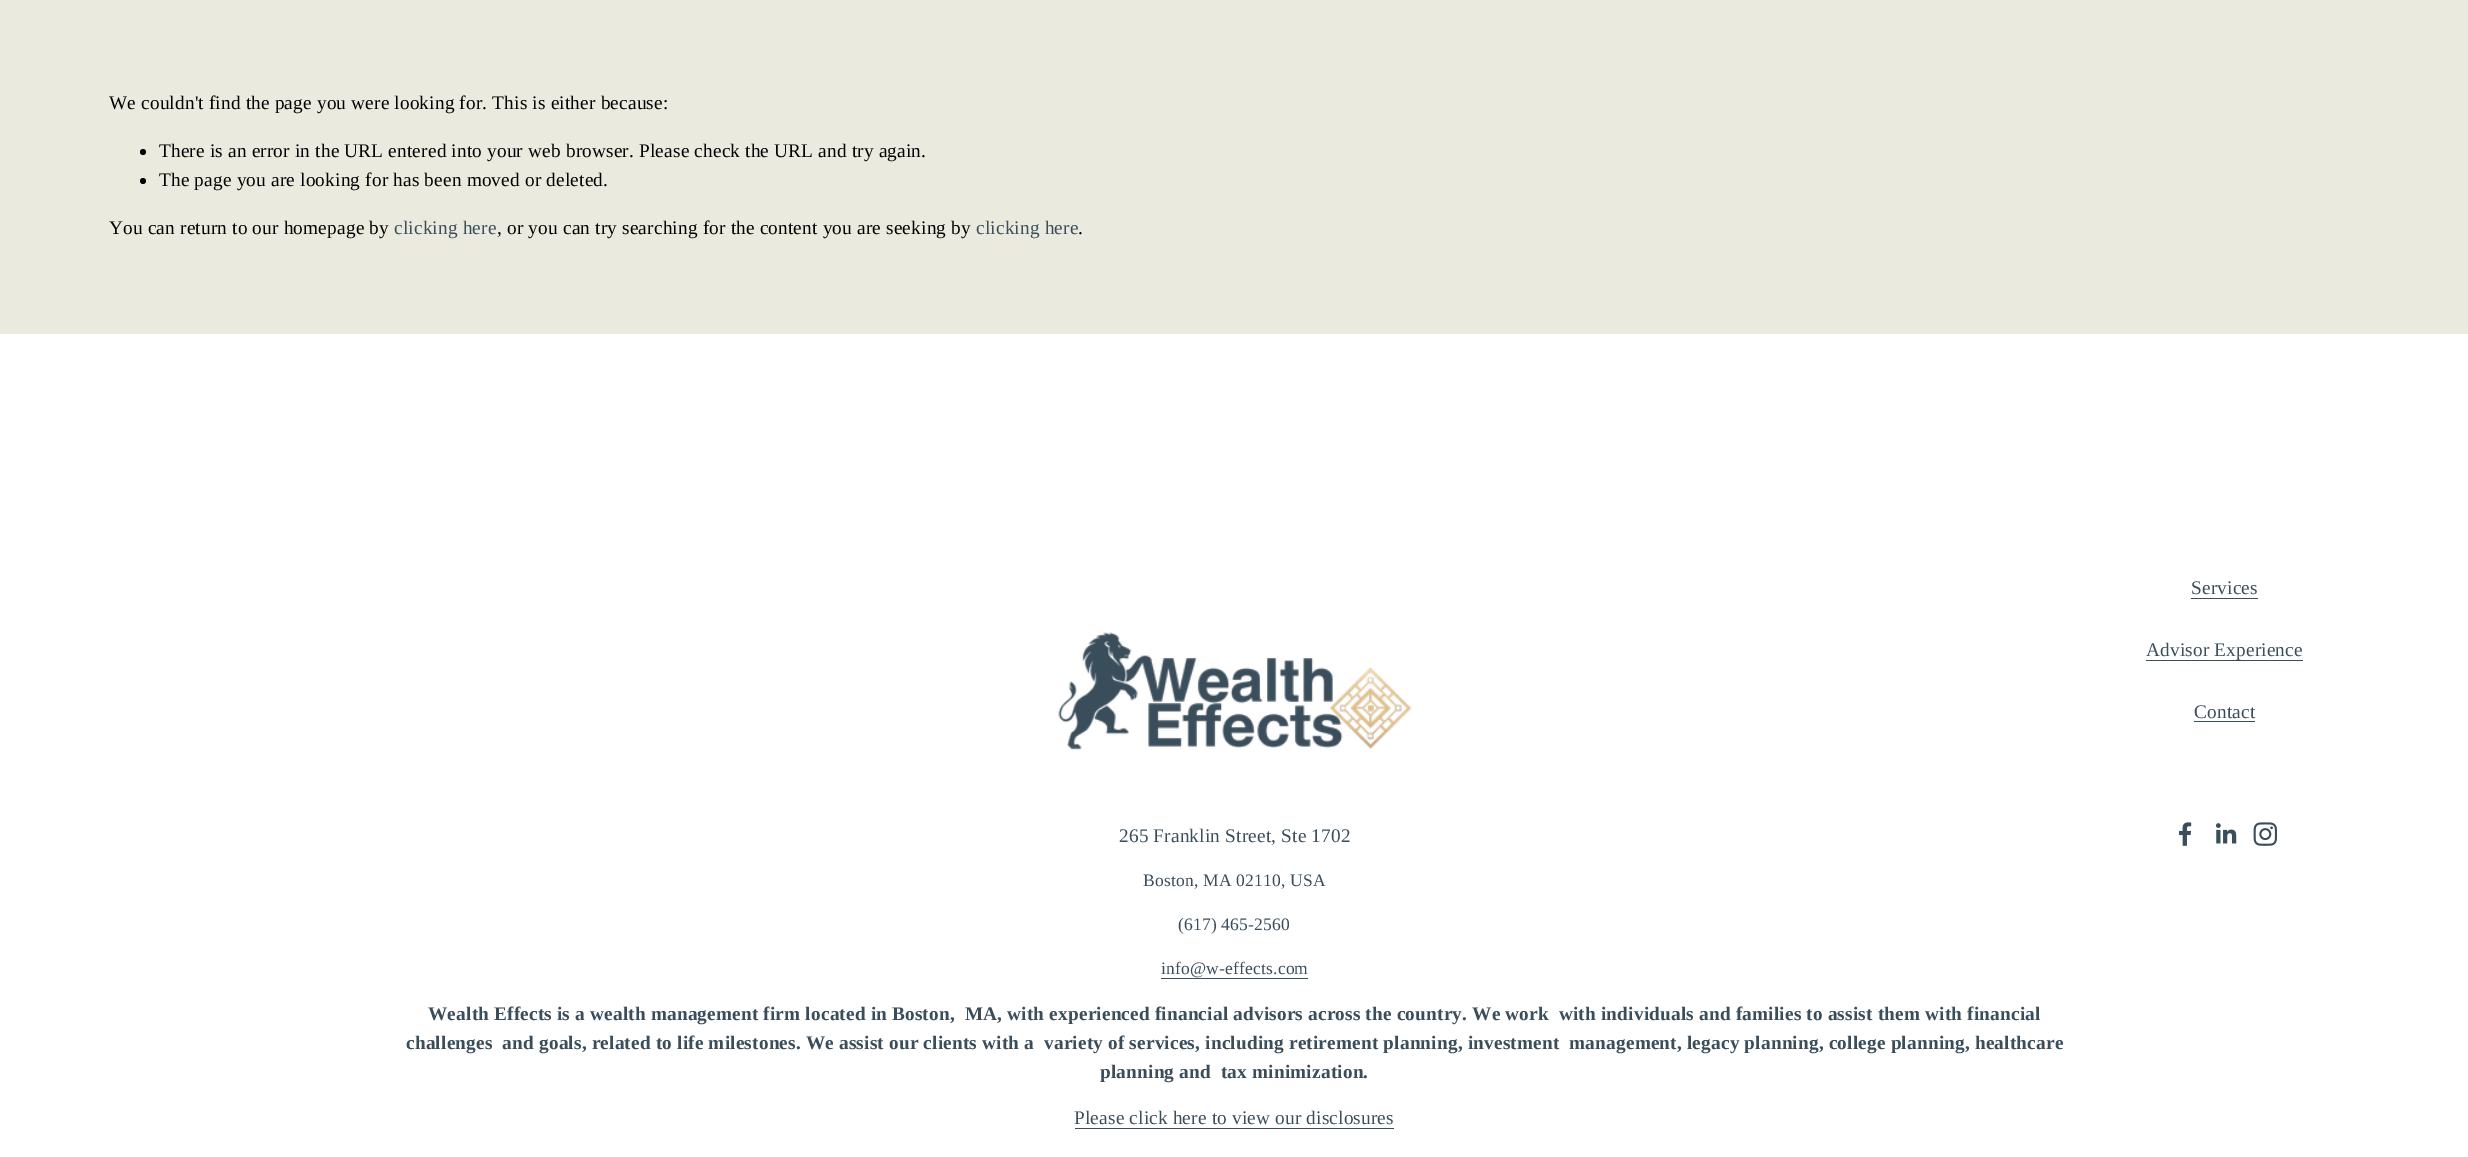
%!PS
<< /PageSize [2468 1157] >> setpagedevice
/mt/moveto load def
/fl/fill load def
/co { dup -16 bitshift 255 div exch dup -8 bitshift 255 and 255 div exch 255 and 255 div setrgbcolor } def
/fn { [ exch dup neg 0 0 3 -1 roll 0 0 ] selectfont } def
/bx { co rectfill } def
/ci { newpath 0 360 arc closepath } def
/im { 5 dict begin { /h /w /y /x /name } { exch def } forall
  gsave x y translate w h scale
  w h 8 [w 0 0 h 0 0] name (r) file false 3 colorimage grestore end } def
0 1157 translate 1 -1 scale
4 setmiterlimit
0 0 2468 1157 16#EBEADF bx
16#000000 co
143 152 3 ci fl
143 181 3 ci fl
0 334 2468 823 16#FFFFFF bx
2191 598 67 1 16#394D5B bx
(media/1.raw) 1058 632 354 118 im
2146 660 157 1 16#394D5B bx
2194 721 61 1 16#394D5B bx
1161 978 147 1 16#394D5B bx
1075 1128 319 1 16#394D5B bx
(media/2.raw) 2179 822 13 24 im
(media/3.raw) 2216 823 21 21 im
(media/4.raw) 2253 822 25 24 im
/LiberationSerif-Regular 19.25 fn
16#000000 co
109 109 mt .19 0 (We couldn't find the page you were looking for. This is either because:) ashow
159 157 mt .19 0 (There is an error in the URL entered into your web browser. Please check the URL and try again.) ashow
159 186 mt .19 0 (The page you are looking for has been moved or deleted.) ashow
109 234 mt .19 0 (You can return to our homepage by) ashow
16#394D5B co
394 234 mt .19 0 (clicking here) ashow
16#000000 co
497 234 mt .19 0 (, or you can try searching for the content you are seeking by) ashow
16#394D5B co
976 234 mt .19 0 (clicking here) ashow
16#000000 co
1078 234 mt .19 0 (.) ashow
16#394D5B co
2191 594 mt .19 0 (Services) ashow
2146 656 mt .19 0 (Advisor Experience) ashow
2194 718 mt .19 0 (Contact) ashow
1119 842 mt .19 0 (265 Franklin Street, Ste 1702) ashow
/LiberationSerif-Regular 17.5 fn
1143 886 mt .19 0 (Boston, MA 02110, USA) ashow
1178 930 mt .19 0 (\(617\) 465-2560) ashow
1161 974 mt .19 0 (info@w-effects.com) ashow
/LiberationSerif-Bold 19.25 fn
428 1020 mt .19 0 (Wealth Effects is a wealth management firm located in Boston,  MA, with experienced financial advisors across the country. We work  with individuals and families to assist them with financial) ashow
406 1049 mt .19 0 (challenges  and goals, related to life milestones. We assist our clients with a  variety of services, including retirement planning, investment  management, legacy planning, college planning, healthcare) ashow
1100 1078 mt .19 0 (planning and  tax minimization.) ashow
/LiberationSerif-Regular 19.25 fn
1074 1124 mt .19 0 (Please click here to view our disclosures) ashow
showpage
